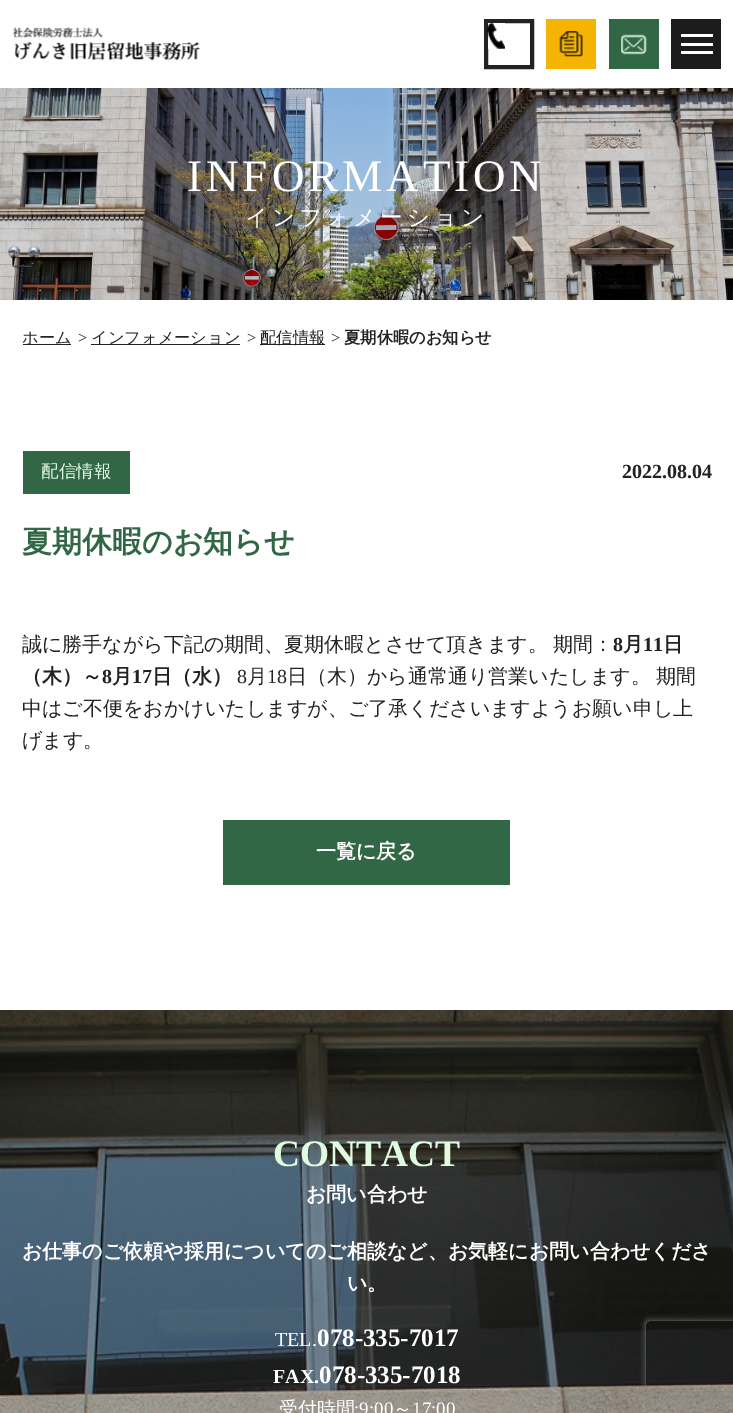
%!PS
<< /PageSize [733 1413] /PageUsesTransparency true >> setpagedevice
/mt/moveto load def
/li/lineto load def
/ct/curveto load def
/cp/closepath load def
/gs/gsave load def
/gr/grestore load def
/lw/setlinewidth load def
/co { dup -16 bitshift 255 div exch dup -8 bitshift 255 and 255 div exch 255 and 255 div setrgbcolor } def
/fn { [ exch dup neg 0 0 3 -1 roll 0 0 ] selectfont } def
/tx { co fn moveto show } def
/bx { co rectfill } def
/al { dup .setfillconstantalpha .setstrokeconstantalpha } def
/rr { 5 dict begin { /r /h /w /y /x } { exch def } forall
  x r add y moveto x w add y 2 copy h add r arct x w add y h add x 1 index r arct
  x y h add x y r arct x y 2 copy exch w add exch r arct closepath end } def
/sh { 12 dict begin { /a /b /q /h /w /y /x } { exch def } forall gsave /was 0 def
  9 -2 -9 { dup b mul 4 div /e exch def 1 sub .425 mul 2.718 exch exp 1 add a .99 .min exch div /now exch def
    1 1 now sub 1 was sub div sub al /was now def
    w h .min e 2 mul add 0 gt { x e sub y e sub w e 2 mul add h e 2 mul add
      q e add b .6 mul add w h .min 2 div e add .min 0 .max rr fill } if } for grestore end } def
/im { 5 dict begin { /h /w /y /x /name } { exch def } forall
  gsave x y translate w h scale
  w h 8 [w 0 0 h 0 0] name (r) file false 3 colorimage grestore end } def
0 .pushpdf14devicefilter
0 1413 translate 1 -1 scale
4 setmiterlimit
0 0 733 1413 16#FFFFFF bx
(media/1.raw) 13 27 187 34 im
16#222222 co
4 lw
486 21 46 46 rectstroke
(media/2.raw) 487 22 18 27 im
546 19 50 50 16#F5B404 bx
(media/3.raw) 559 31 24 26 im
609 19 50 50 16#316745 bx
(media/4.raw) 621 34 26 21 im
671 19 50 50 16#1C1C1C bx
681 34 32 3 16#FFFFFF bx
681 43 32 3 16#FFFFFF bx
681 51 32 3 16#FFFFFF bx
(media/5.raw) 0 88 733 212 im
23 344 48 1 16#232121 bx
91 344 149 1 16#232121 bx
260 344 65 1 16#232121 bx
23 451 107 43 16#316745 bx
223 820 287 65 16#316745 bx
(media/6.raw) 0 1010 733 403 im
gs
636 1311 mt 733 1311 li 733 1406 li 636 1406 li cp 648.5 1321 mt 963.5 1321 li 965 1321 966 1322 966 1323.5 ct 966 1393.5 li 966 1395 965 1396 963.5 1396 ct 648.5 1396 li 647 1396 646 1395 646 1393.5 ct 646 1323.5 li 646 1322 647 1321 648.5 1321 ct cp eoclip newpath
16#808080 co
646 1321 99 75 2.5 3 1 sh
gr
/LiberationSerif-Regular 45 fn
16#FFFFFF co
187 191 mt 4 0 (INFORMATION) ashow
/WenQuanYiZenHei-Medium 22.5 fn
245 225 mt 4 0 (インフォメーション) ashow
(ホーム) 22 343 /WenQuanYiZenHei-Medium 16.25 16#232121 tx
(>) 78 343 /LiberationSerif-Regular 16.25 16#232121 tx
(インフォメーション) 91 343 /WenQuanYiZenHei-Medium 16.25 16#232121 tx
(>) 247 343 /LiberationSerif-Regular 16.25 16#232121 tx
(配信情報) 260 343 /WenQuanYiZenHei-Medium 16.25 16#232121 tx
(>) 331 343 /LiberationSerif-Regular 16.25 16#232121 tx
(夏期休暇のお知らせ) 344 343 /WenQuanYiZenHei-Bold 16.25 16#232121 tx
(配信情報) 41 477 /WenQuanYiZenHei-Medium 17.5 16#E1FBE1 tx
(2022.08.04) 622 478 /LiberationSerif-Bold 20 16#232121 tx
(夏期休暇のお知らせ) 22 552 /WenQuanYiZenHei-Bold 30 16#316745 tx
(誠に勝手ながら下記の期間、夏期休暇とさせて頂きます。) 22 651 /WenQuanYiZenHei-Medium 20 16#232121 tx
(期間：) 553 651 /WenQuanYiZenHei-Medium 20 16#232121 tx
(8) 613 651 /LiberationSerif-Bold 20 16#232121 tx
(月) 623 651 /WenQuanYiZenHei-Bold 20 16#232121 tx
(11) 643 651 /LiberationSerif-Bold 20 16#232121 tx
(日) 663 651 /WenQuanYiZenHei-Bold 20 16#232121 tx
(（木）～) 22 683 /WenQuanYiZenHei-Bold 20 16#232121 tx
(8) 102 683 /LiberationSerif-Bold 20 16#232121 tx
(月) 112 683 /WenQuanYiZenHei-Bold 20 16#232121 tx
(17) 132 683 /LiberationSerif-Bold 20 16#232121 tx
(日（水）) 152 683 /WenQuanYiZenHei-Bold 20 16#232121 tx
(8) 237 683 /LiberationSerif-Regular 20 16#232121 tx
(月) 247 683 /WenQuanYiZenHei-Medium 20 16#232121 tx
(18) 267 683 /LiberationSerif-Regular 20 16#232121 tx
(日（木）から通常通り営業いたします。) 287 683 /WenQuanYiZenHei-Medium 20 16#232121 tx
(期間) 656 683 /WenQuanYiZenHei-Medium 20 16#232121 tx
(中はご不便をおかけいたしますが、ご了承くださいますようお願い申し上) 22 715 /WenQuanYiZenHei-Medium 20 16#232121 tx
(げます。) 22 747 /WenQuanYiZenHei-Medium 20 16#232121 tx
(一覧に戻る) 316 858 /WenQuanYiZenHei-Bold 20 16#FFFFFF tx
(CONTACT) 273 1166 /LiberationSerif-Bold 37.5 16#E1FBE1 tx
(お問い合わせ) 306 1201 /WenQuanYiZenHei-Bold 20 16#FFFFFF tx
(お仕事のご依頼や採用についてのご相談など、お気軽にお問い合わせくださ) 22 1258 /WenQuanYiZenHei-Bold 20 16#FFFFFF tx
(い。) 347 1290 /WenQuanYiZenHei-Bold 20 16#FFFFFF tx
(TEL.) 275 1346 /LiberationSerif-Regular 20 16#FFFFFF tx
(078-335-7017) 317 1346 /LiberationSerif-Bold 25 16#FFFFFF tx
(FAX.) 273 1383 /LiberationSerif-Bold 20 16#FFFFFF tx
(078-335-7018) 319 1383 /LiberationSerif-Bold 25 16#FFFFFF tx
(受付時間) 279 1415 /WenQuanYiZenHei-Medium 19 16#FFFFFF tx
(:9:00) 354 1415 /LiberationSerif-Regular 19 16#FFFFFF tx
(～) 393 1415 /WenQuanYiZenHei-Medium 19 16#FFFFFF tx
(17:00) 412 1415 /LiberationSerif-Regular 19 16#FFFFFF tx
.poppdf14devicefilter showpage
